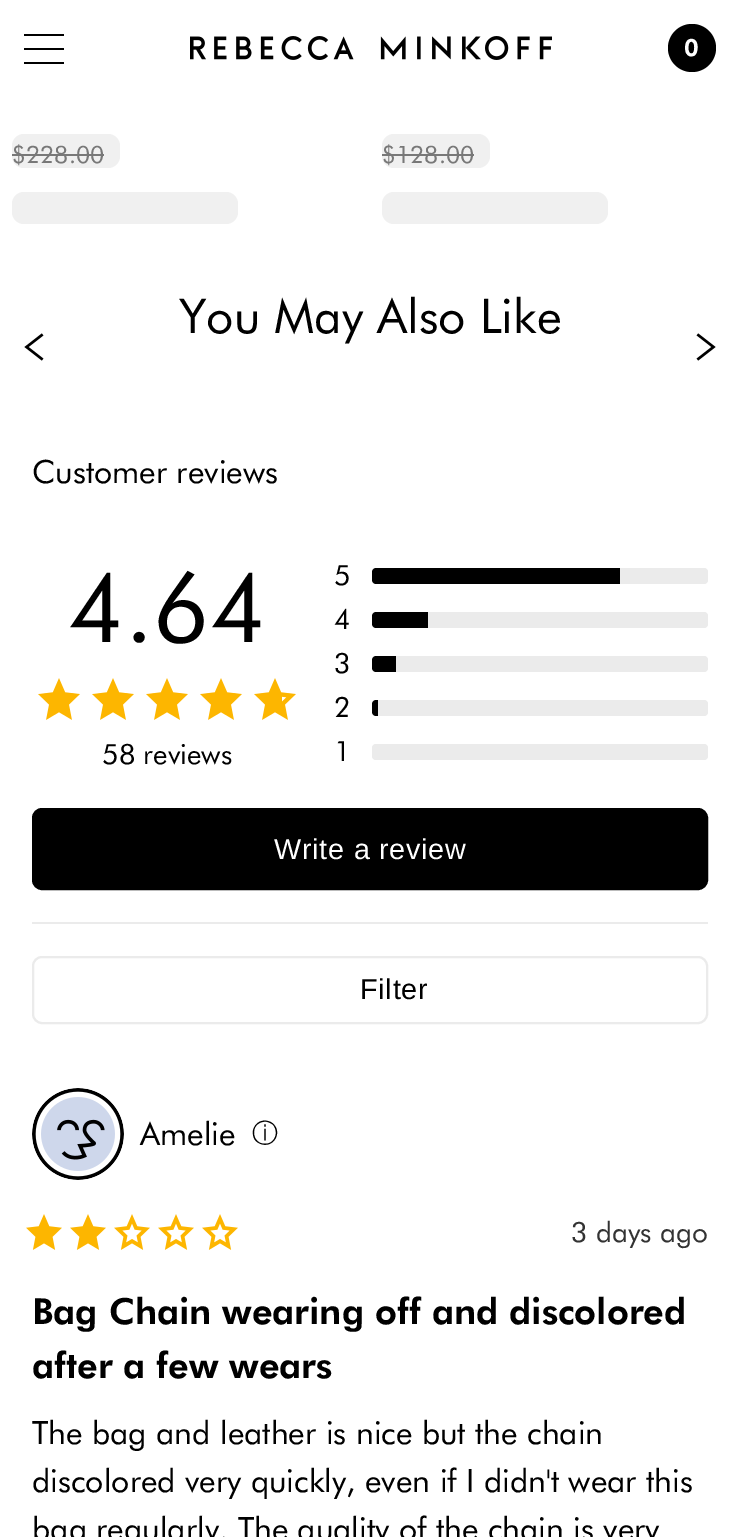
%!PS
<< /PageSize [739 1537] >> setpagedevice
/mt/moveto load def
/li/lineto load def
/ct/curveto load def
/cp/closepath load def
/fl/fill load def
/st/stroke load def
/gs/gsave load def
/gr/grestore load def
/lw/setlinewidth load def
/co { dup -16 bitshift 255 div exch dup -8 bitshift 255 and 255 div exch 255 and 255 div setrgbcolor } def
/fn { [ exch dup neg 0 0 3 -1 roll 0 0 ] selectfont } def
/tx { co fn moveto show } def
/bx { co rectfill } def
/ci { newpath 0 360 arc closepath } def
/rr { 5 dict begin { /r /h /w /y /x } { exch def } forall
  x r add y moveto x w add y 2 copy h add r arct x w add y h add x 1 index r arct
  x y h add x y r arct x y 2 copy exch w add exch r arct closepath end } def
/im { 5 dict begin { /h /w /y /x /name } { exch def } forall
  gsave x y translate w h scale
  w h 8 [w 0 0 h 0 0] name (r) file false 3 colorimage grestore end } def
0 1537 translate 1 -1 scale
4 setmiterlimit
0 0 739 1537 16#FFFFFF bx
16#000000 co
64 34 mt 24 34 li 24 36 li 64 36 li cp 24 48 mt 64 48 li 64 50 li 24 50 li cp 24 62 mt 64 62 li 64 64 li 24 64 li cp eofill
(media/1.raw) 190 36 362 24 im
692 48 24 ci fl
16#F0F0F0 co
12 134 108 34 12 rr fl
12 192 226 32 12 rr fl
12 154 92 2 16#787878 bx
16#F0F0F0 co
382 134 108 34 12 rr fl
382 192 226 32 12 rr fl
382 154 92 2 16#787878 bx
(media/2.raw) 24 333 20 28 im
(media/3.raw) 696 333 20 28 im
(media/4.raw) 38 678 42 42 im
(media/4.raw) 92 678 42 42 im
(media/4.raw) 146 678 42 42 im
(media/4.raw) 200 678 42 42 im
(media/4.raw) 254 678 42 42 im
16#FDB600 co
59 680.5 mt 64.5 693 li 77.5 694.5 li 68 704 li 70.5 717.5 li 59 710.5 li 47.5 717.5 li 50 704 li 40.5 694.5 li 53.5 693 li cp fl
113 680.5 mt 118.5 693 li 131.5 694.5 li 122 704 li 124.5 717.5 li 113 710.5 li 101.5 717.5 li 104 704 li 94.5 694.5 li 107.5 693 li cp fl
167 680.5 mt 172.5 693 li 185.5 694.5 li 176 704 li 178.5 717.5 li 167 710.5 li 155.5 717.5 li 158 704 li 148.5 694.5 li 161.5 693 li cp fl
221 680.5 mt 226.5 693 li 239.5 694.5 li 230 704 li 232.5 717.5 li 221 710.5 li 209.5 717.5 li 212 704 li 202.5 694.5 li 215.5 693 li cp fl
gs
254 678 28 42 rectclip
275 680.5 mt 280.5 693 li 293.5 694.5 li 284 704 li 286.5 717.5 li 275 710.5 li 263.5 717.5 li 266 704 li 256.5 694.5 li 269.5 693 li cp fl
gr
16#EBEBEB co
372 568 336 16 4 rr fl
16#000000 co
376 568 mt 620 568 li 620 584 li 376 584 li 374 584 372 582 372 580 ct 372 572 li 372 570 374 568 376 568 ct cp fl
16#EBEBEB co
372 612 336 16 4 rr fl
16#000000 co
376 612 mt 428 612 li 428 628 li 376 628 li 374 628 372 626 372 624 ct 372 616 li 372 614 374 612 376 612 ct cp fl
16#EBEBEB co
372 656 336 16 4 rr fl
16#000000 co
376 656 mt 396 656 li 396 672 li 376 672 li 374 672 372 670 372 668 ct 372 660 li 372 658 374 656 376 656 ct cp fl
16#EBEBEB co
372 700 336 16 4 rr fl
16#000000 co
376 700 mt 378 700 li 378 716 li 376 716 li 374 716 372 714 372 712 ct 372 704 li 372 702 374 700 376 700 ct cp fl
16#EBEBEB co
372 744 336 16 4 rr fl
16#000000 co
33 809 674 80 9 rr gs fl gr
2 lw
st
32 922 676 2 16#EBEBEB bx
33 957 674 66 9 rr st
(media/5.raw) 32 1088 92 92 im
(media/6.raw) 26 1214 36 36 im
(media/6.raw) 70 1214 36 36 im
(media/6.raw) 114 1214 36 36 im
(media/6.raw) 158 1214 36 36 im
(media/6.raw) 202 1214 36 36 im
16#FDB600 co
44 1216 mt 48.5 1227 li 60 1228.5 li 51.5 1236 li 53.5 1248 li 44 1242 li 34.5 1248 li 36.5 1236 li 28 1228.5 li 39.5 1227 li cp fl
88 1216 mt 92.5 1227 li 104 1228.5 li 95.5 1236 li 97.5 1248 li 88 1242 li 78.5 1248 li 80.5 1236 li 72 1228.5 li 83.5 1227 li cp fl
/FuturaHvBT-Black 24 fn
16#FFFFFF co
684 56 mt 2 0 (0) ashow
($228.00) 12 163 /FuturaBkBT-Regular 24 16#787878 tx
($128.00) 382 163 /FuturaBkBT-Regular 24 16#787878 tx
(You May Also Like) 179 333 /FuturaBkBT-Regular 48 16#000000 tx
(Customer reviews) 32 483 /FuturaBkBT-Regular 32 16#000000 tx
(4.64) 68 642 /FuturaBkBT-Regular 96 16#000000 tx
(58 reviews) 102 764 /FuturaBkBT-Regular 28 16#000000 tx
(5) 334 585 /FuturaBkBT-Regular 28 16#000000 tx
(4) 334 629 /FuturaBkBT-Regular 28 16#000000 tx
(3) 334 673 /FuturaBkBT-Regular 28 16#000000 tx
(2) 334 717 /FuturaBkBT-Regular 28 16#000000 tx
(1) 334 761 /FuturaBkBT-Regular 28 16#000000 tx
/LiberationSans-Regular 28.75 fn
16#FFFFFF co
274 859 mt .75 0 (Write a review) ashow
16#000000 co
360 999 mt .75 0 (Filter) ashow
(Amelie) 140 1145 /FuturaBkBT-Regular 32 16#000000 tx
(ⓘ) 252 1142 /WenQuanYiZenHei-Medium 26 16#000000 tx
(3 days ago) 571 1242 /FuturaBkBT-Regular 28 16#333333 tx
(Bag Chain wearing off and discolored) 32 1324 /FuturaHvBT-Black 36 16#000000 tx
(after a few wears) 32 1378 /FuturaHvBT-Black 36 16#000000 tx
(The bag and leather is nice but the chain) 32 1444 /FuturaBkBT-Regular 32 16#000000 tx
(discolored very quickly, even if I didn't wear this) 32 1492 /FuturaBkBT-Regular 32 16#000000 tx
(bag regularly. The quality of the chain is very) 32 1540 /FuturaBkBT-Regular 32 16#000000 tx
showpage
